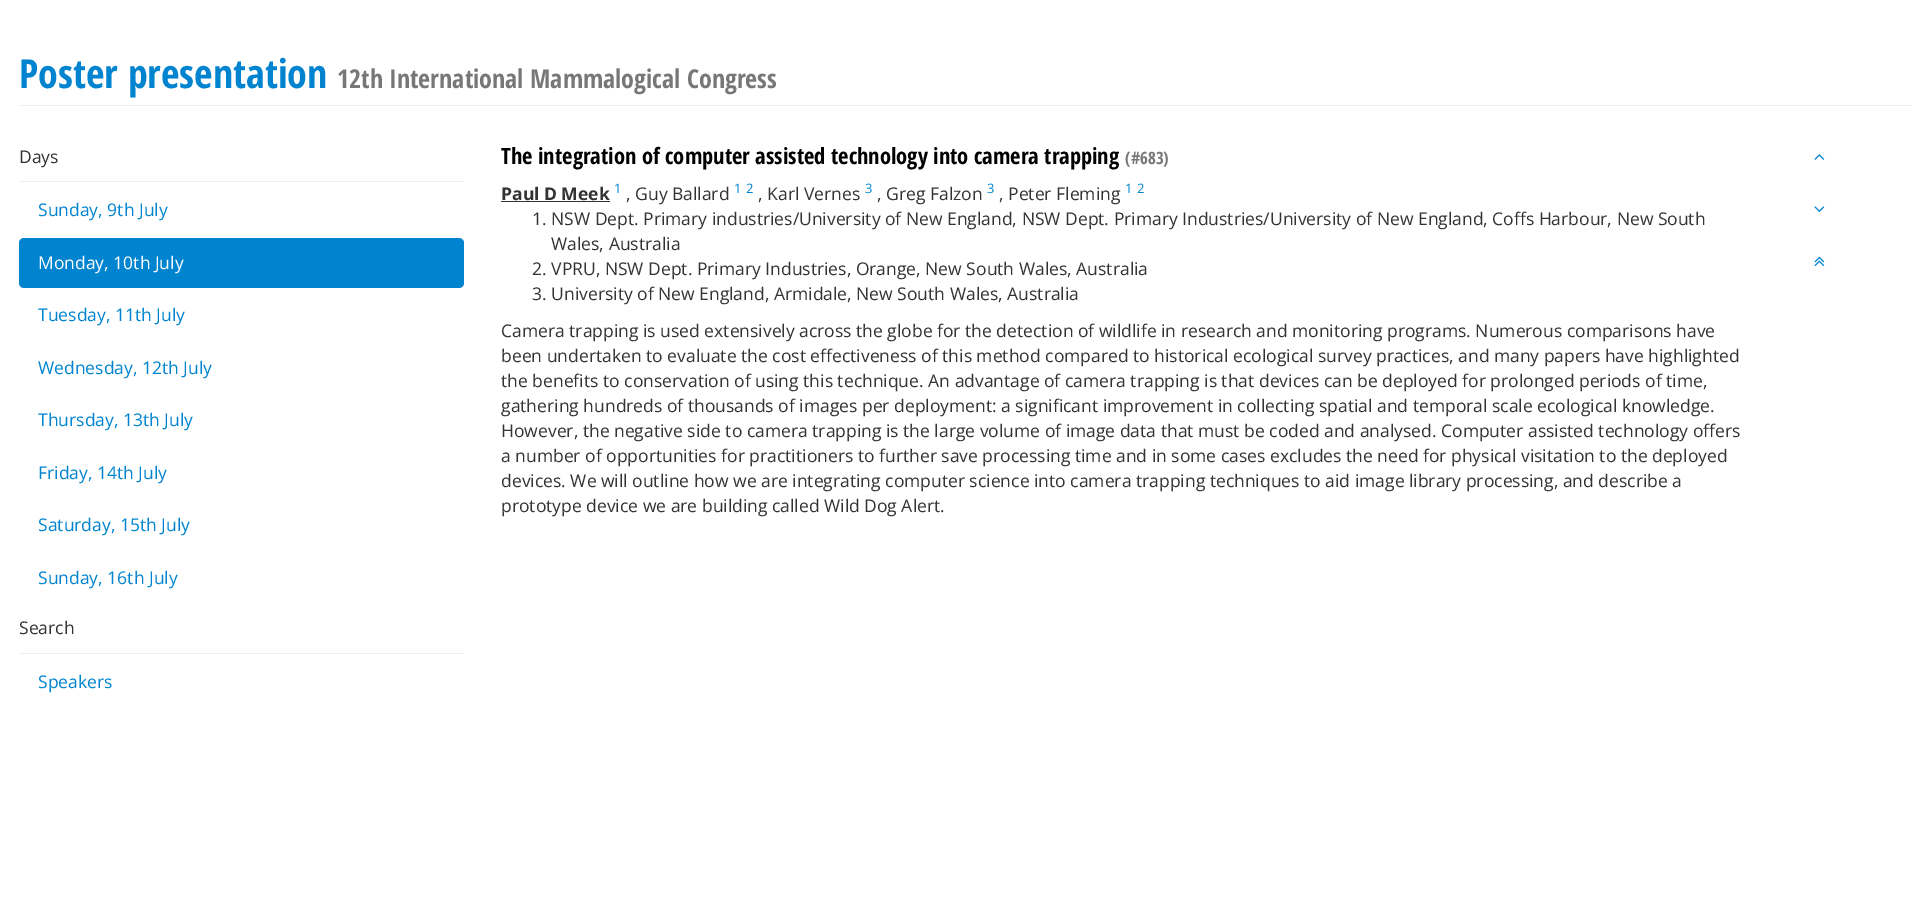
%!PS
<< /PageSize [1930 924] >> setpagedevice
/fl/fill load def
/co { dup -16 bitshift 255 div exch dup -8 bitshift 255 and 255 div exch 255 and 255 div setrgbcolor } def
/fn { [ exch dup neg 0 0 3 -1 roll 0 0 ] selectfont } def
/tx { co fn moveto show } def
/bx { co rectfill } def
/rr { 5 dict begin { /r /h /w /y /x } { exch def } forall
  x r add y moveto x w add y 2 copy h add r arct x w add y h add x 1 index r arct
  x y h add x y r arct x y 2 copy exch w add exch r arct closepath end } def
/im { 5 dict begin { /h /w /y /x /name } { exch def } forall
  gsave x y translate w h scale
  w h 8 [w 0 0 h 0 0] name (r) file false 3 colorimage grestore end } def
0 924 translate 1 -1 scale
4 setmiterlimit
0 0 1930 924 16#FFFFFF bx
19 105 1892 1 16#EEEEEE bx
19 181 445 1 16#EEEEEE bx
16#0084D0 co
19 238 445 50 5 rr fl
19 653 445 1 16#EEEEEE bx
501 201 109 1 16#333333 bx
(media/1.raw) 1814 154 11 6 im
(media/2.raw) 1814 206 11 6 im
(media/3.raw) 1814 256 11 11 im
(Poster presentation) 19 88 /OpenSansCondensed-Bold 40 16#0084D0 tx
(12th International Mammalogical Congress) 337 88 /OpenSansCondensed-Bold 26 16#777777 tx
(Days) 19 163 /OpenSans-Regular 17.5 16#333333 tx
(Sunday, 9th July) 38 216 /OpenSans-Regular 17.5 16#0084D0 tx
(Monday, 10th July) 38 269 /OpenSans-Regular 17.5 16#FFFFFF tx
(Tuesday, 11th July) 38 321 /OpenSans-Regular 17.5 16#0084D0 tx
(Wednesday, 12th July) 38 374 /OpenSans-Regular 17.5 16#0084D0 tx
(Thursday, 13th July) 38 426 /OpenSans-Regular 17.5 16#0084D0 tx
(Friday, 14th July) 38 479 /OpenSans-Regular 17.5 16#0084D0 tx
(Saturday, 15th July) 38 531 /OpenSans-Regular 17.5 16#0084D0 tx
(Sunday, 16th July) 38 584 /OpenSans-Regular 17.5 16#0084D0 tx
(Search) 19 634 /OpenSans-Regular 17.5 16#333333 tx
(Speakers) 38 688 /OpenSans-Regular 17.5 16#0084D0 tx
(The integration of computer assisted technology into camera trapping) 501 164 /OpenSansCondensed-Bold 22.5 16#000000 tx
(\(#683\)) 1125 164 /OpenSansCondensed-Bold 17 16#777777 tx
(Paul D Meek) 501 200 /OpenSans-Bold 17.5 16#333333 tx
(1) 614 193 /OpenSans-Regular 13 16#0084D0 tx
(, Guy Ballard) 626 200 /OpenSans-Regular 17.5 16#333333 tx
(1) 734 193 /OpenSans-Regular 13 16#0084D0 tx
(2) 746 193 /OpenSans-Regular 13 16#0084D0 tx
(, Karl Vernes) 758 200 /OpenSans-Regular 17.5 16#333333 tx
(3) 865 193 /OpenSans-Regular 13 16#0084D0 tx
(, Greg Falzon) 877 200 /OpenSans-Regular 17.5 16#333333 tx
(3) 987 193 /OpenSans-Regular 13 16#0084D0 tx
(, Peter Fleming) 999 200 /OpenSans-Regular 17.5 16#333333 tx
(1) 1125 193 /OpenSans-Regular 13 16#0084D0 tx
(2) 1137 193 /OpenSans-Regular 13 16#0084D0 tx
(1. NSW Dept. Primary industries/University of New England, NSW Dept. Primary Industries/University of New England, Coffs Harbour, New South) 532 225 /OpenSans-Regular 17.5 16#333333 tx
(Wales, Australia) 551 250 /OpenSans-Regular 17.5 16#333333 tx
(2. VPRU, NSW Dept. Primary Industries, Orange, New South Wales, Australia) 532 275 /OpenSans-Regular 17.5 16#333333 tx
(3. University of New England, Armidale, New South Wales, Australia) 532 300 /OpenSans-Regular 17.5 16#333333 tx
(Camera trapping is used extensively across the globe for the detection of wildlife in research and monitoring programs. Numerous comparisons have) 501 337 /OpenSans-Regular 17.5 16#333333 tx
(been undertaken to evaluate the cost effectiveness of this method compared to historical ecological survey practices, and many papers have highlighted) 501 362 /OpenSans-Regular 17.5 16#333333 tx
(the benefits to conservation of using this technique. An advantage of camera trapping is that devices can be deployed for prolonged periods of time,) 501 387 /OpenSans-Regular 17.5 16#333333 tx
(gathering hundreds of thousands of images per deployment: a significant improvement in collecting spatial and temporal scale ecological knowledge.) 501 412 /OpenSans-Regular 17.5 16#333333 tx
(However, the negative side to camera trapping is the large volume of image data that must be coded and analysed. Computer assisted technology offers) 501 437 /OpenSans-Regular 17.5 16#333333 tx
(a number of opportunities for practitioners to further save processing time and in some cases excludes the need for physical visitation to the deployed) 501 462 /OpenSans-Regular 17.5 16#333333 tx
(devices. We will outline how we are integrating computer science into camera trapping techniques to aid image library processing, and describe a) 501 487 /OpenSans-Regular 17.5 16#333333 tx
(prototype device we are building called Wild Dog Alert.) 501 512 /OpenSans-Regular 17.5 16#333333 tx
showpage
